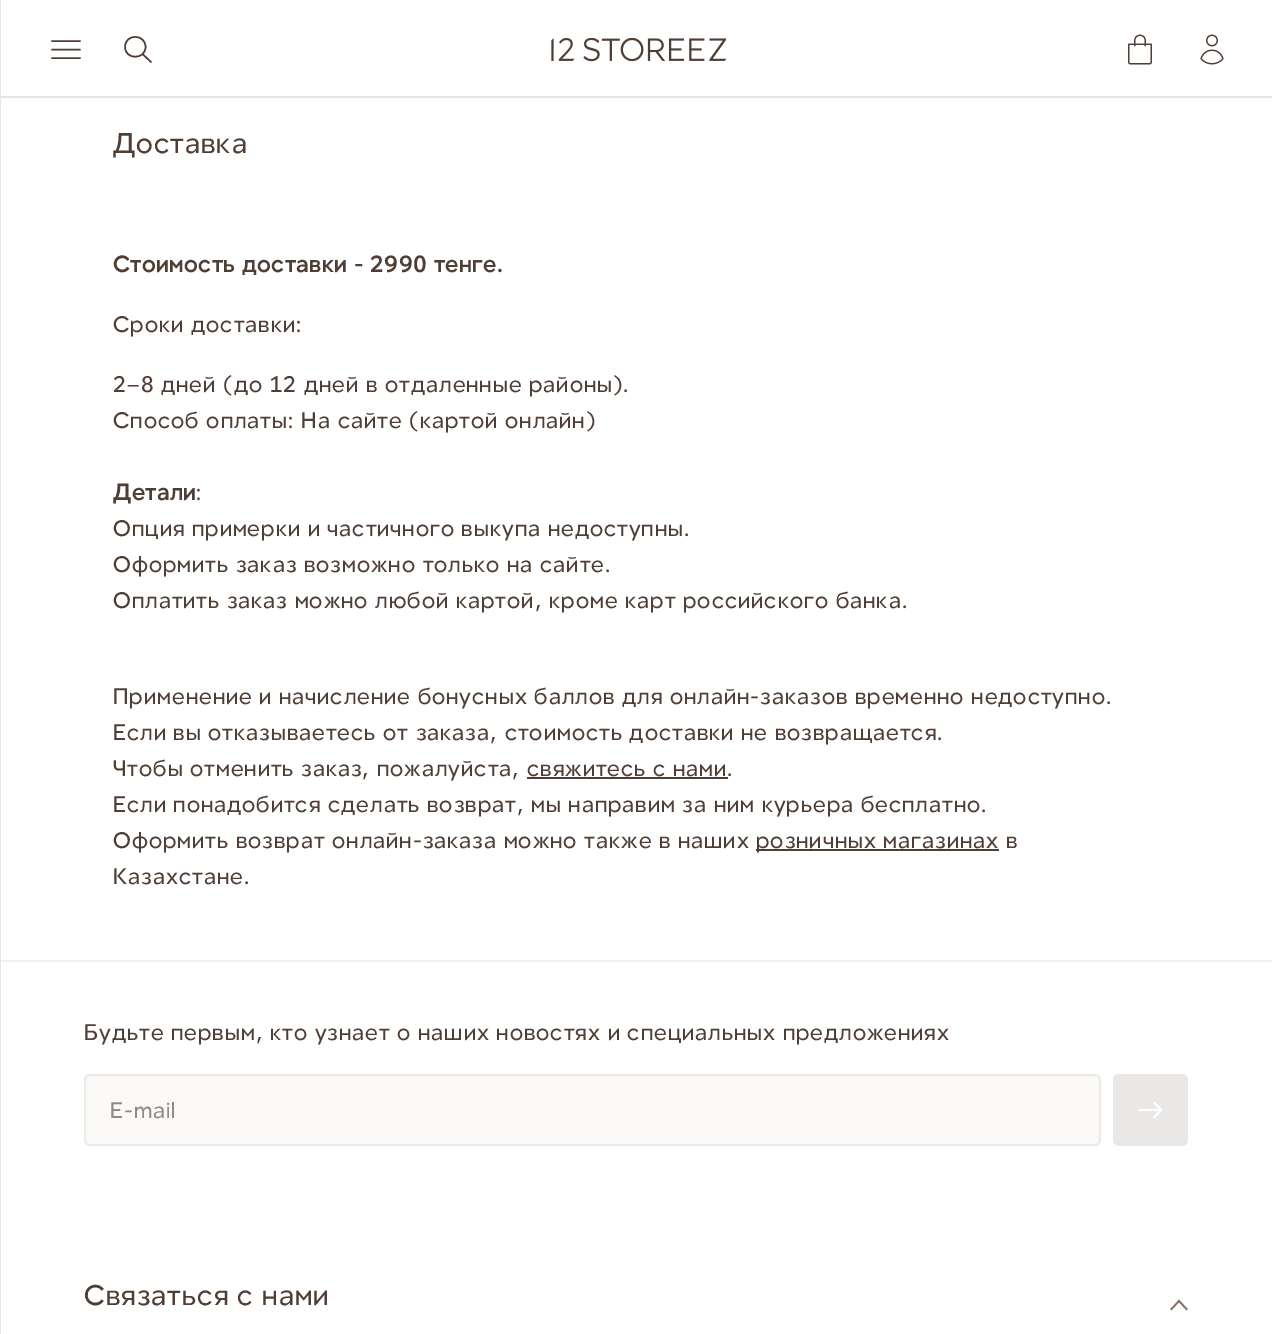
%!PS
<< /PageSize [1272 1334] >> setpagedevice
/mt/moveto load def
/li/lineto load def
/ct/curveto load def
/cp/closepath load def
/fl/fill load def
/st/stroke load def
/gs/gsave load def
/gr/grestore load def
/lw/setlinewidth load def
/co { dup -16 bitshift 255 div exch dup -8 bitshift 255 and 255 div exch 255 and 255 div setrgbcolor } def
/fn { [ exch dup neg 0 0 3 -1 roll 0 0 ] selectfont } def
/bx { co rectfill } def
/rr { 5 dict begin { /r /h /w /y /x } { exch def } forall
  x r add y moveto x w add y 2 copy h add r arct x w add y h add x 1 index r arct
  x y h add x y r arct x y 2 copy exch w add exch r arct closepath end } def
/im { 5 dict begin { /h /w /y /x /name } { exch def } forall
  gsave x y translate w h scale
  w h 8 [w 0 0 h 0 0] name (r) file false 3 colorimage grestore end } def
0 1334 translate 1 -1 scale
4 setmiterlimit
0 0 1272 1334 16#FFFFFF bx
0 96 1272 2 16#E5E5E5 bx
0 960 1272 2 16#F1F0EF bx
0 0 1 1334 16#E5E5E5 bx
16#4F3E35 co
1.5 lw
1 setlinecap
1 setlinejoin
52 49.5 mt 80 49.5 li 52 41 mt 80 41 li 52 58 mt 80 58 li st
0 setlinejoin
142.5 54 mt 151 62 li 145.5 47 mt 145.5 60 125 60 125 47 ct 125 33.5 145.5 33.5 145.5 47 ct cp st
(media/1.raw) 551 38 176 24 im
(media/2.raw) 1128 34 24 31 im
(media/3.raw) 1200 34 24 31 im
527 777 201 2 16#4F3E35 bx
756 849 243 2 16#4F3E35 bx
16#FBFAF8 co
85 1075 1015 70 5 rr gs fl gr
16#EDEBE8 co
2 lw
0 setlinecap
st
16#EAE8E7 co
1113 1074 75 72 6 rr fl
(media/4.raw) 1138 1102 25 16 im
16#887569 co
1.8 lw
2 setlinecap
1171.5 1309 mt 1179 1301 li 1186.5 1309 li st
/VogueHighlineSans-Regular 28.5 fn
16#4F3E35 co
113 153 mt 1.05 0 (Доставка) ashow
/VogueHighlineSans-Bold 22.5 fn
113 272 mt 1.05 0 (Стоимость доставки - 2990 тенге.) ashow
/VogueHighlineSans-Regular 22.5 fn
113 332 mt 1.05 0 (Сроки доставки:) ashow
113 392 mt 1.05 0 (2–8 дней \(до 12 дней в отдаленные районы\).) ashow
113 428 mt 1.05 0 (Способ оплаты: На сайте \(картой онлайн\)) ashow
/VogueHighlineSans-Bold 22.5 fn
113 500 mt 1.05 0 (Детали) ashow
/VogueHighlineSans-Regular 22.5 fn
196 500 mt 1.05 0 (:) ashow
113 536 mt 1.05 0 (Опция примерки и частичного выкупа недоступны.) ashow
113 572 mt 1.05 0 (Оформить заказ возможно только на сайте.) ashow
113 608 mt 1.05 0 (Оплатить заказ можно любой картой, кроме карт российского банка.) ashow
113 704 mt 1.05 0 (Применение и начисление бонусных баллов для онлайн-заказов временно недоступно.) ashow
113 740 mt 1.05 0 (Если вы отказываетесь от заказа, стоимость доставки не возвращается.) ashow
113 776 mt 1.05 0 (Чтобы отменить заказ, пожалуйста, свяжитесь с нами.) ashow
113 812 mt 1.05 0 (Если понадобится сделать возврат, мы направим за ним курьера бесплатно.) ashow
113 848 mt 1.05 0 (Оформить возврат онлайн-заказа можно также в наших) ashow
756 848 mt 1.05 0 (розничных магазинах в) ashow
113 884 mt 1.05 0 (Казахстане.) ashow
84 1040 mt 1.05 0 (Будьте первым, кто узнает о наших новостях и специальных предложениях) ashow
16#948983 co
110 1118 mt 1.05 0 (E-mail) ashow
/VogueHighlineSans-Regular 28.5 fn
16#4F3E35 co
84 1305 mt 1.05 0 (Связаться с нами) ashow
showpage
